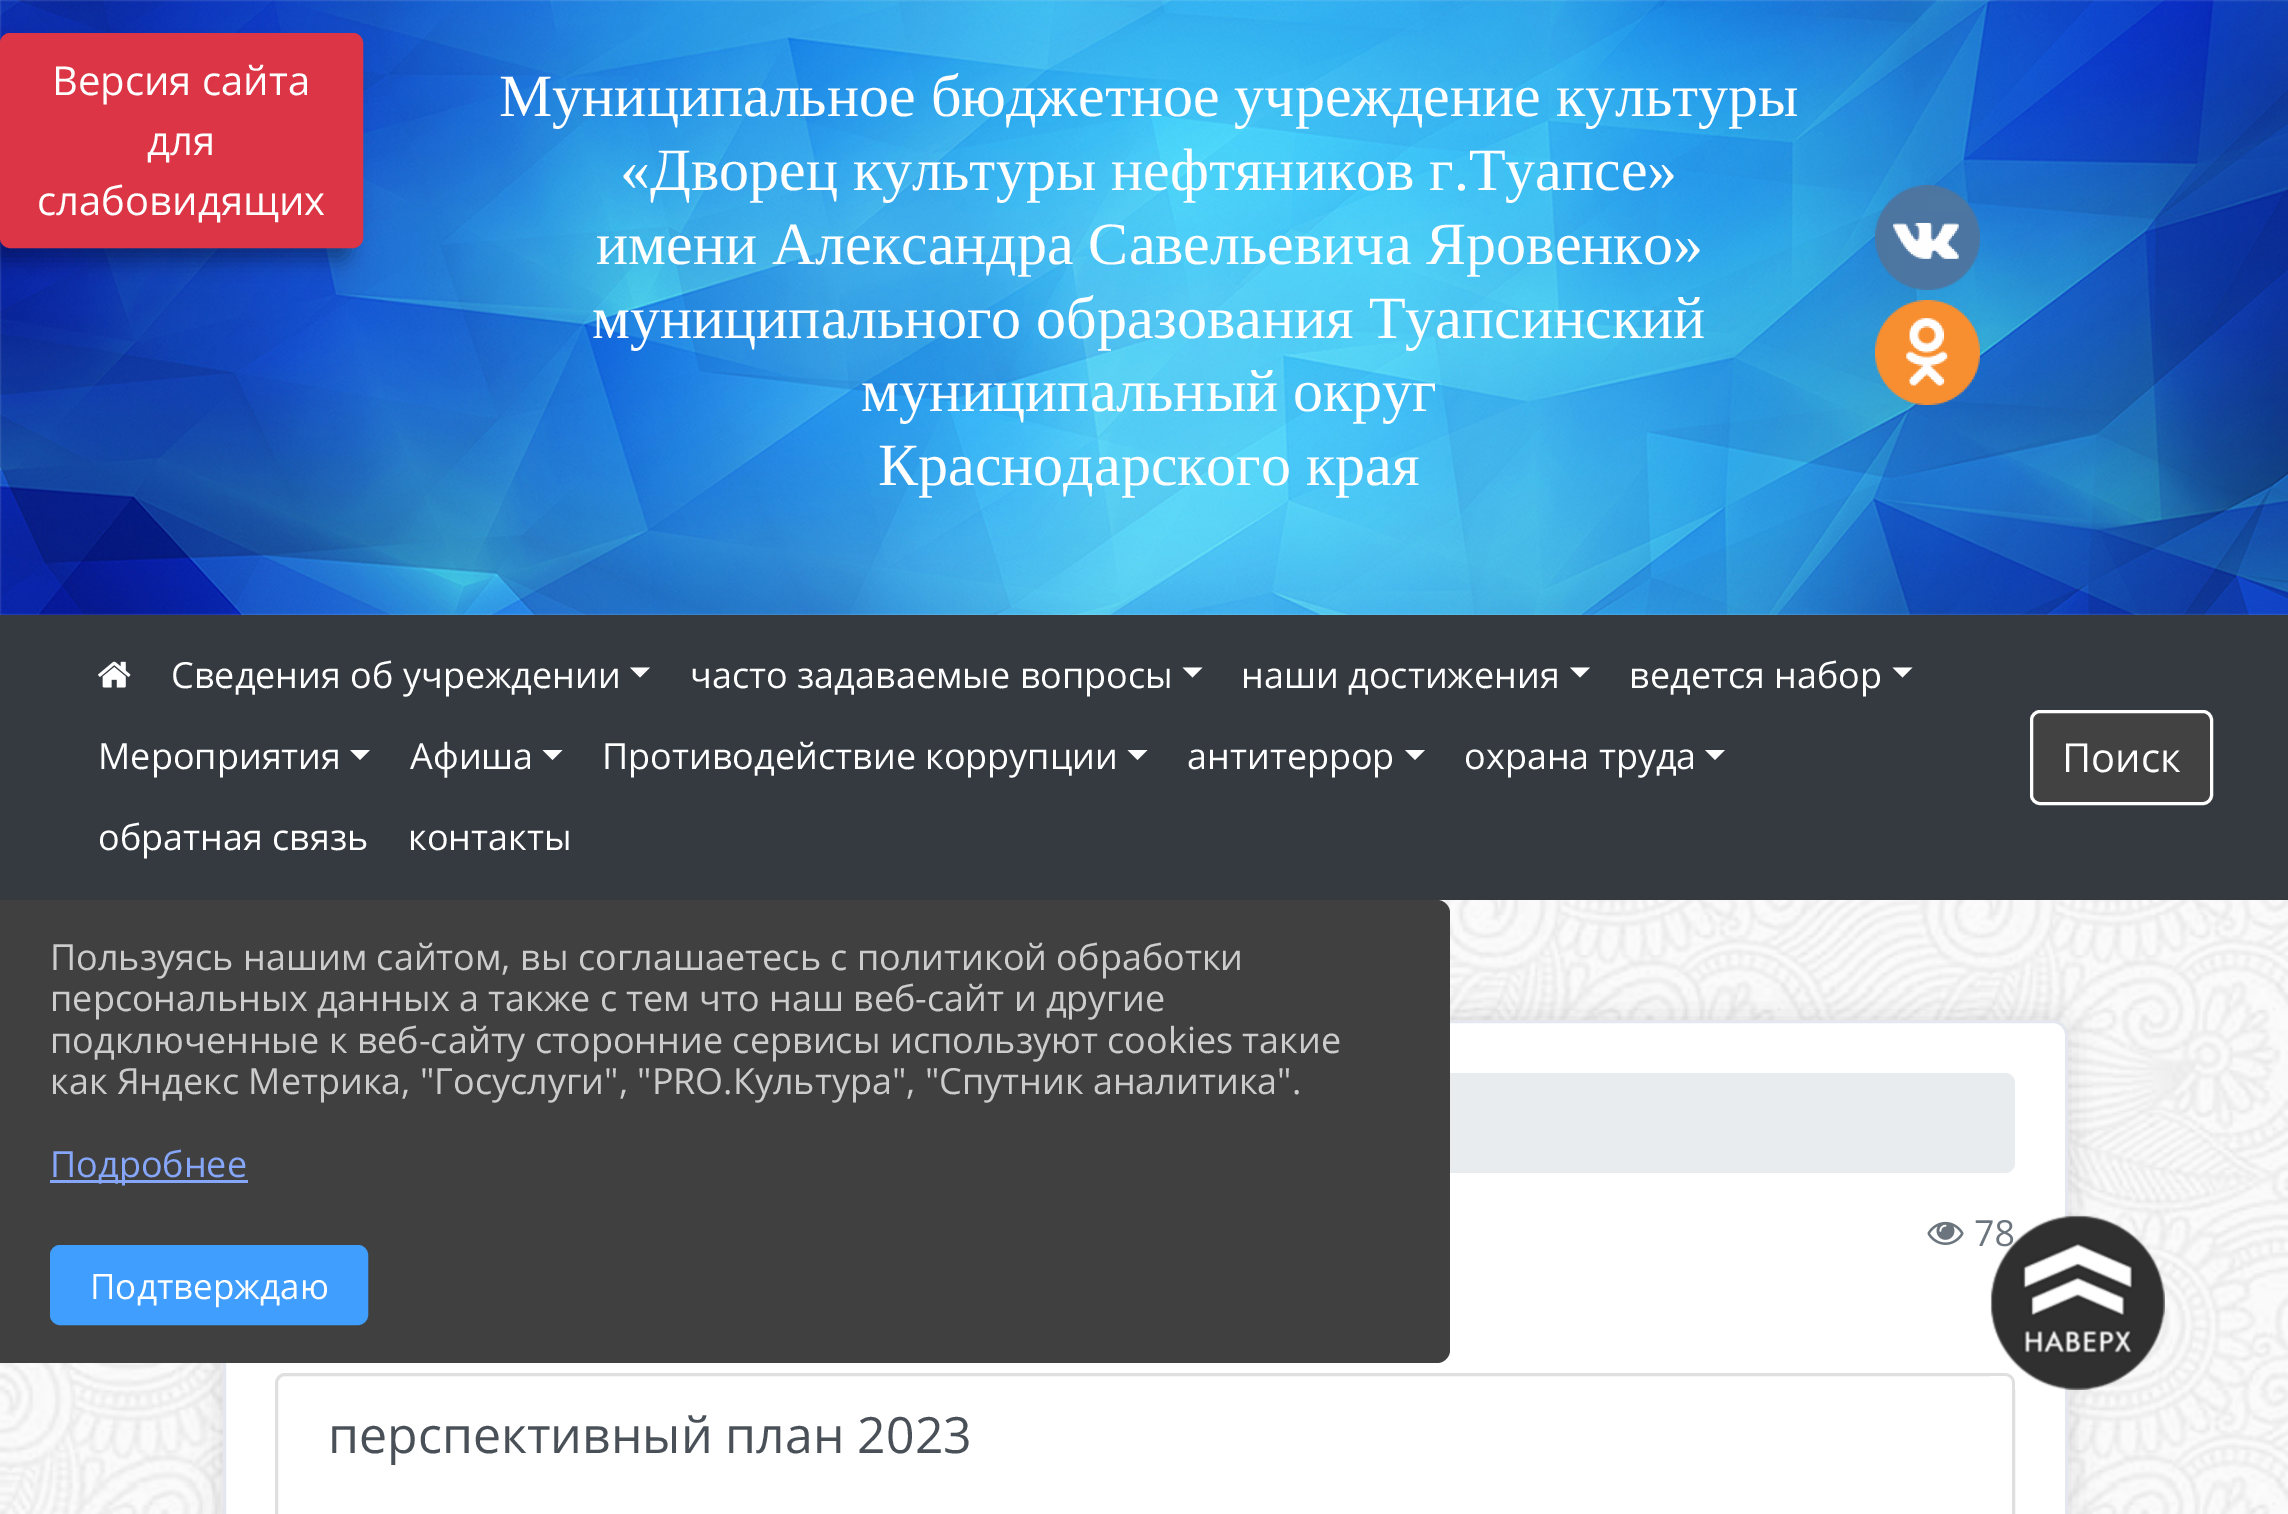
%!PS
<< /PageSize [2288 1514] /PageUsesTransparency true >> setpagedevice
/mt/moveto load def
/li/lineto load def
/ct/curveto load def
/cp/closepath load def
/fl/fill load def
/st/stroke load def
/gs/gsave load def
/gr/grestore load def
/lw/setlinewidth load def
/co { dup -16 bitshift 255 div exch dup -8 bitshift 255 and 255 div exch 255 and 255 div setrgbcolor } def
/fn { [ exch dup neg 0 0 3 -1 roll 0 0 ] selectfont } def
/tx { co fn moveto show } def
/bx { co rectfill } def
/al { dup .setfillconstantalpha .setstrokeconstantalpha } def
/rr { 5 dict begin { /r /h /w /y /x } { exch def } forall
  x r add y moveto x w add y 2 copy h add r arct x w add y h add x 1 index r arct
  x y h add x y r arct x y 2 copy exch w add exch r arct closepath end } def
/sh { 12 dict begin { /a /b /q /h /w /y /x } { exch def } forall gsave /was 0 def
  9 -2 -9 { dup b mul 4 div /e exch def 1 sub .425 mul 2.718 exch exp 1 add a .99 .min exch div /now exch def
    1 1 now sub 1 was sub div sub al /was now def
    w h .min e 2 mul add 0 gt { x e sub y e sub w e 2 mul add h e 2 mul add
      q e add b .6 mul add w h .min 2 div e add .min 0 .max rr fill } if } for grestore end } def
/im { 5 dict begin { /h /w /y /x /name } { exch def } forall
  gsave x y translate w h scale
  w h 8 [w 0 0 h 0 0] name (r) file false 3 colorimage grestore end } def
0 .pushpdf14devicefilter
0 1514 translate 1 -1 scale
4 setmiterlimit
0 0 2288 1514 16#FFFFFF bx
(media/1.raw) 0 900 2288 614 im
(media/2.raw) 0 0 2288 615 im
16#000000 co
-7 50 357 210 8 10 .35 sh
16#DC3545 co
1.5 34.5 360 212 8.5 rr gs fl gr
3 lw
st
(media/3.raw) 1875 185 105 105 im
(media/4.raw) 1875 300 105 105 im
0 615 2288 285 16#343A40 bx
(media/5.raw) 98 661 33 27 im
16#FFFFFF co
630 667.5 mt 650 667.5 li 640 677.5 li cp fl
1182.5 667.5 mt 1202.5 667.5 li 1192.5 677.5 li cp fl
1570 667.5 mt 1590 667.5 li 1580 677.5 li cp fl
1892.5 667.5 mt 1912.5 667.5 li 1902.5 677.5 li cp fl
350 750 mt 370 750 li 360 760 li cp fl
542.5 750 mt 562.5 750 li 552.5 760 li cp fl
1127.5 750 mt 1147.5 750 li 1137.5 760 li cp fl
1405 750 mt 1425 750 li 1415 760 li cp fl
1705 750 mt 1725 750 li 1715 760 li cp fl
16#424242 co
2031.5 711.5 180 92 8.5 rr gs fl gr
16#FFFFFF co
st
16#000000 co
223 1020 1845 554 15 15 .12 sh
16#FFFFFF co
224.5 1021.5 1842 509 13.5 rr gs fl gr
16#E4E7ED co
st
16#E9ECEF co
275 1073 1740 100 10 rr fl
(media/6.raw) 1927 1221 37 24 im
16#DFDFDF co
285 1374.5 mt 2005 1374.5 li 2009.5 1374.5 2013.5 1378.5 2013.5 1383 ct 2013.5 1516.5 li 276.5 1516.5 li 276.5 1383 li 276.5 1378.5 280.5 1374.5 285 1374.5 ct cp st
16#404040 co
0 900 mt 1437 900 li 1444 900 1450 906 1450 913 ct 1450 1350 li 1450 1357 1444 1363 1437 1363 ct 0 1363 li cp fl
50 1180 198 3 16#85A6F9 bx
16#409EFF co
51.5 1246.5 315 77 8.5 rr gs fl gr
st
(Версия сайта) 52 95 /OpenSans-Regular 40 16#FFFFFF tx
(для) 147 155 /OpenSans-Regular 40 16#FFFFFF tx
(слабовидящих) 37 215 /OpenSans-Regular 40 16#FFFFFF tx
(Муниципальное бюджетное учреждение культуры) 499 116 /LiberationSerif-Regular 60 16#FFFFFF tx
(«Дворец культуры нефтяников г.Туапсе») 620 190 /LiberationSerif-Regular 60 16#FFFFFF tx
(имени Александра Савельевича Яровенко») 596 264 /LiberationSerif-Regular 60 16#FFFFFF tx
(муниципального образования Туапсинский) 592 338 /LiberationSerif-Regular 60 16#FFFFFF tx
(муниципальный округ) 861 411 /LiberationSerif-Regular 60 16#FFFFFF tx
(Краснодарского края) 878 485 /LiberationSerif-Regular 60 16#FFFFFF tx
(Сведения об учреждении) 171 688 /OpenSans-Regular 36 16#FFFFFF tx
(часто задаваемые вопросы) 690 688 /OpenSans-Regular 36 16#FFFFFF tx
(наши достижения) 1241 688 /OpenSans-Regular 36 16#FFFFFF tx
(ведется набор) 1629 688 /OpenSans-Regular 36 16#FFFFFF tx
(Мероприятия) 98 769 /OpenSans-Regular 36 16#FFFFFF tx
(Афиша) 410 769 /OpenSans-Regular 36 16#FFFFFF tx
(Противодействие коррупции) 602 769 /OpenSans-Regular 36 16#FFFFFF tx
(антитеррор) 1187 769 /OpenSans-Regular 36 16#FFFFFF tx
(охрана труда) 1464 769 /OpenSans-Regular 36 16#FFFFFF tx
(обратная связь) 98 850 /OpenSans-Regular 36 16#FFFFFF tx
(контакты) 408 850 /OpenSans-Regular 36 16#FFFFFF tx
(Поиск) 2062 772 /OpenSans-Regular 40 16#FFFFFF tx
(78) 1974 1246 /OpenSans-Regular 36 16#6C757D tx
(перспективный план 2023) 328 1453 /OpenSans-Regular 50 16#495057 tx
(media/7.raw) 1990 1215 175 175 im
(Пользуясь нашим сайтом, вы соглашаетесь с политикой обработки) 50 970 /OpenSans-Regular 36 16#CCCCCC tx
(персональных данных а также с тем что наш веб-сайт и другие) 50 1011 /OpenSans-Regular 36 16#CCCCCC tx
(подключенные к веб-сайту сторонние сервисы используют cookies такие) 50 1053 /OpenSans-Regular 36 16#CCCCCC tx
(как Яндекс Метрика, "Госуслуги", "PRO.Культура", "Спутник аналитика".) 50 1094 /OpenSans-Regular 36 16#CCCCCC tx
(Подробнее) 50 1177 /OpenSans-Regular 36 16#85A6F9 tx
(Подтверждаю) 90 1299 /OpenSans-Regular 35 16#FFFFFF tx
.poppdf14devicefilter showpage
